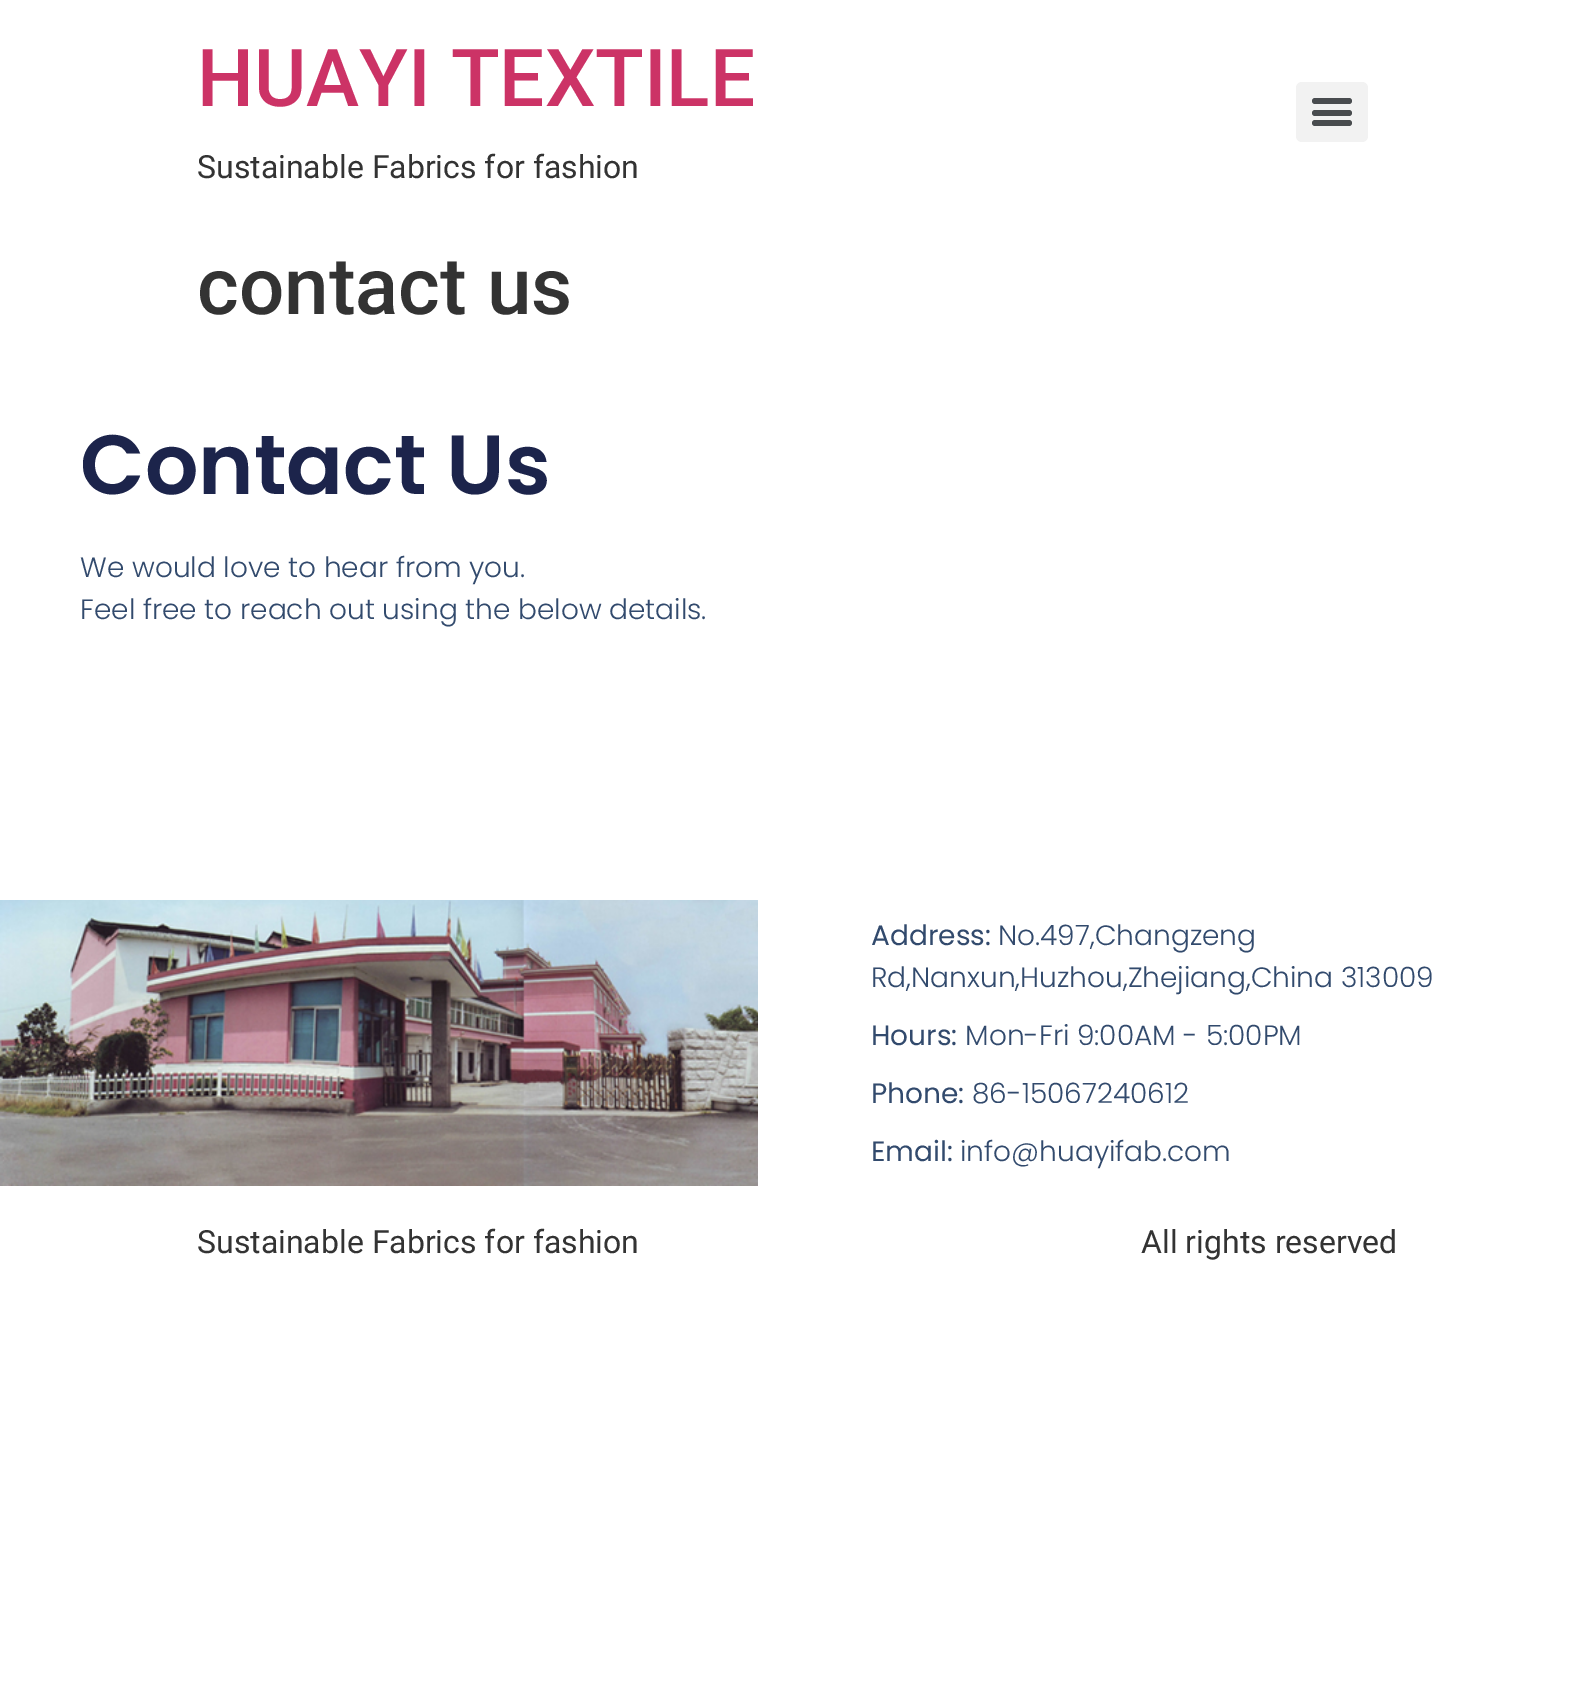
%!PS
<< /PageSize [1594 1685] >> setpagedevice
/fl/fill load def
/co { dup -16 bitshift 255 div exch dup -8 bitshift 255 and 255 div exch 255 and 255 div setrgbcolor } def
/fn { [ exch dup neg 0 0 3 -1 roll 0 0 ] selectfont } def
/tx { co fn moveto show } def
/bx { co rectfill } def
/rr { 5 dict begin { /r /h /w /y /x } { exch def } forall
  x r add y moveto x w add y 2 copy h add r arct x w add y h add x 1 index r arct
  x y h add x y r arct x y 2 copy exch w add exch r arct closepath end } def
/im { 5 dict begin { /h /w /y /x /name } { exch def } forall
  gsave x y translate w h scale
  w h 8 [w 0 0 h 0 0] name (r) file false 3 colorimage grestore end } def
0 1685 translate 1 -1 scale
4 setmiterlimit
0 0 1594 1685 16#FFFFFF bx
16#F2F2F2 co
1296 82 72 60 6 rr fl
16#494C4F co
1312 110 40 6 3 rr fl
1312 98 40 6 3 rr fl
1312 120 40 6 3 rr fl
(media/1.raw) 0 900 758 286 im
(HUAYI TEXTILE) 197 106 /Roboto-Medium 80 16#CC3366 tx
(Sustainable Fabrics for fashion) 197 178 /Roboto-Regular 32 16#333333 tx
(contact us) 197 314 /Roboto-Medium 80 16#333333 tx
(Contact Us) 80 494 /Poppins-SemiBold 84 16#1C244B tx
(We would love to hear from you.) 80 577 /Poppins-Light 28 16#324A6D tx
(Feel free to reach out using the below details.) 80 619 /Poppins-Light 28 16#324A6D tx
(Address:) 871 945 /Poppins-Regular 28 16#324A6D tx
(No.497,Changzeng) 998 945 /Poppins-Light 28 16#324A6D tx
(Rd,Nanxun,Huzhou,Zhejiang,China 313009) 871 987 /Poppins-Light 28 16#324A6D tx
(Hours:) 871 1045 /Poppins-Regular 28 16#324A6D tx
(Mon-Fri 9:00AM - 5:00PM) 965 1045 /Poppins-Light 28 16#324A6D tx
(Phone:) 871 1103 /Poppins-Regular 28 16#324A6D tx
(86-15067240612) 972 1103 /Poppins-Light 28 16#324A6D tx
(Email:) 871 1161 /Poppins-Regular 28 16#324A6D tx
(info@huayifab.com) 960 1161 /Poppins-Light 28 16#324A6D tx
(Sustainable Fabrics for fashion) 197 1253 /Roboto-Regular 32 16#333333 tx
(All rights reserved) 1141 1253 /Roboto-Regular 32 16#333333 tx
showpage
